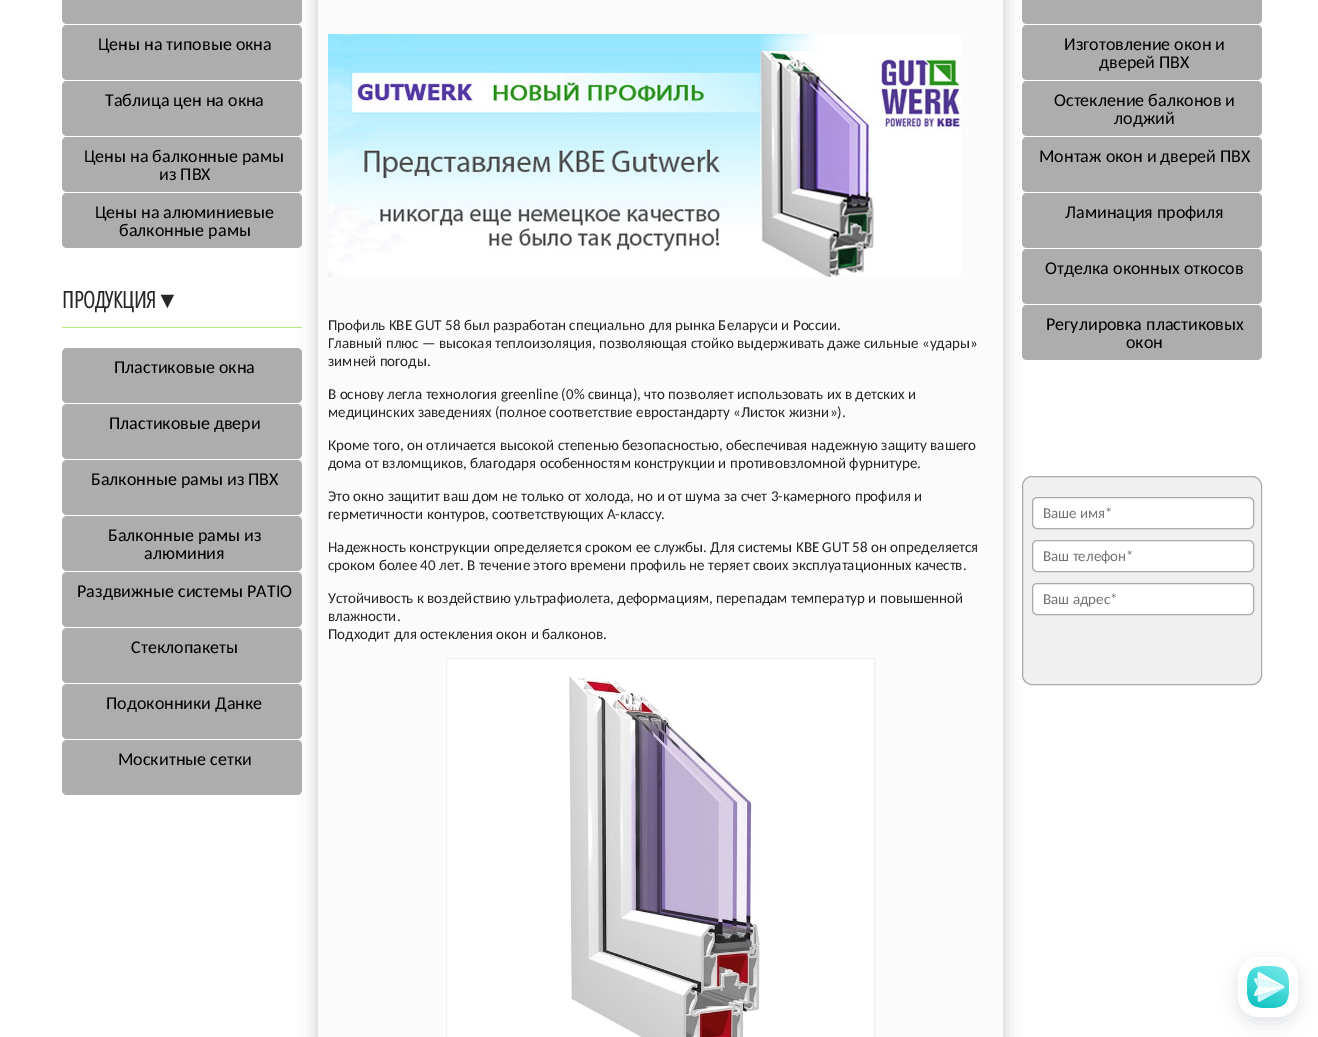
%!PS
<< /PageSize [1318 1037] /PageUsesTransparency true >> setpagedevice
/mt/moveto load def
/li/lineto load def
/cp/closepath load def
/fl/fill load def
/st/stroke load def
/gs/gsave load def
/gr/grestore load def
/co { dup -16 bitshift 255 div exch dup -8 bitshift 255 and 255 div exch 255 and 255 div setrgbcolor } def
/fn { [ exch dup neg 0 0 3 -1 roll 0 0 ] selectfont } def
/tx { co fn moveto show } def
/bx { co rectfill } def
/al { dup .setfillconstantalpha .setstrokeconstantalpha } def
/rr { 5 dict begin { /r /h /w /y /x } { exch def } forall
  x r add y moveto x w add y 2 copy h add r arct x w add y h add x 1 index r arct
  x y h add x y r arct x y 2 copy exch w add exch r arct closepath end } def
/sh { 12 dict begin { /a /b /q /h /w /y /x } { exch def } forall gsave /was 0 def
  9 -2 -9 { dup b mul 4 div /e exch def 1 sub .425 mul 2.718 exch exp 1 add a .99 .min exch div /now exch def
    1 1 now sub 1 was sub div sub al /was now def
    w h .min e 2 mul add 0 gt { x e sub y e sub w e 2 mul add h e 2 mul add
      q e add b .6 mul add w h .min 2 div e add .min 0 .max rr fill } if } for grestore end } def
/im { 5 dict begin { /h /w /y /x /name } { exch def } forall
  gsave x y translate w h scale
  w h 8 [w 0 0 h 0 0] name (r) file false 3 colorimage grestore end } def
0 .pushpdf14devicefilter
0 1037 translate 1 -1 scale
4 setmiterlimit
0 0 1318 1037 16#FFFFFF bx
62 327 240 1 16#B3EB79 bx
16#000000 co
318 -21 685 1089 2 9.5 .22 sh
16#ADADAD co
62 -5 240 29 5 rr fl
62 25 240 55 5 rr fl
62 81 240 55 5 rr fl
62 137 240 55 5 rr fl
62 193 240 55 5 rr fl
62 348 240 55 5 rr fl
62 404 240 55 5 rr fl
62 460 240 55 5 rr fl
62 516 240 55 5 rr fl
62 572 240 55 5 rr fl
62 628 240 55 5 rr fl
62 684 240 55 5 rr fl
62 740 240 55 5 rr fl
318 0 685 1037 16#FBFBFB bx
(media/1.raw) 328 34 633 243 im
16#FFFFFF co
446.5 658.5 mt 874.5 658.5 li 874.5 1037.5 li 446.5 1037.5 li cp gs fl gr
16#F0F0F0 co
st
(media/2.raw) 569 676 191 361 im
16#ADADAD co
1022 -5 240 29 5 rr fl
1022 25 240 55 5 rr fl
1022 81 240 55 5 rr fl
1022 137 240 55 5 rr fl
1022 193 240 55 5 rr fl
1022 249 240 55 5 rr fl
1022 305 240 55 5 rr fl
16#F0F0F0 co
1022.5 476.5 239 208 9.5 rr gs fl gr
16#AAAAAA co
st
16#FFFFFF co
1032.5 497.5 221 31 4.5 rr gs fl gr
16#AAAAAA co
st
16#FFFFFF co
1032.5 540.5 221 31 4.5 rr gs fl gr
16#AAAAAA co
st
16#FFFFFF co
1032.5 583.5 221 31 4.5 rr gs fl gr
16#AAAAAA co
st
16#0E152F co
1238 963 60 60 20 9 .13 sh
16#FFFFFF co
1238 957 60 60 20 rr fl
(media/3.raw) 1247 966 42 42 im
(Цены на типовые окна) 98 50 /Carlito-Regular 18 16#000000 tx
(Таблица цен на окна) 105 106 /Carlito-Regular 18 16#000000 tx
(Цены на балконные рамы) 84 162 /Carlito-Regular 18 16#000000 tx
(из ПВХ) 159 180 /Carlito-Regular 18 16#000000 tx
(Цены на алюминиевые) 95 218 /Carlito-Regular 18 16#000000 tx
(балконные рамы) 119 236 /Carlito-Regular 18 16#000000 tx
(ПРОДУКЦИЯ) 62 308 /OpenSansCondensed-Bold 23 16#272727 tx
(▼) 156 308 /LiberationSans-Bold 23 16#272727 tx
(Пластиковые окна) 114 373 /Carlito-Regular 18 16#000000 tx
(Пластиковые двери) 109 429 /Carlito-Regular 18 16#000000 tx
(Балконные рамы из ПВХ) 91 485 /Carlito-Regular 18 16#000000 tx
(Балконные рамы из) 108 541 /Carlito-Regular 18 16#000000 tx
(алюминия) 144 559 /Carlito-Regular 18 16#000000 tx
(Раздвижные системы PATIO) 77 597 /Carlito-Regular 18 16#000000 tx
(Стеклопакеты) 131 653 /Carlito-Regular 18 16#000000 tx
(Подоконники Данке) 106 709 /Carlito-Regular 18 16#000000 tx
(Москитные сетки) 118 765 /Carlito-Regular 18 16#000000 tx
(Профиль KBE GUT 58 был разработан специально для рынка Беларуси и России.) 328 330 /Carlito-Regular 15 16#272727 tx
(Главный плюс — высокая теплоизоляция, позволяющая стойко выдерживать даже сильные «удары») 328 348 /Carlito-Regular 15 16#272727 tx
(зимней погоды.) 328 366 /Carlito-Regular 15 16#272727 tx
(В основу легла технология greenline \(0% свинца\), что позволяет использовать их в детских и) 328 399 /Carlito-Regular 15 16#272727 tx
(медицинских заведениях \(полное соответствие евростандарту «Листок жизни»\).) 328 417 /Carlito-Regular 15 16#272727 tx
(Кроме того, он отличается высокой степенью безопасностью, обеспечивая надежную защиту вашего) 328 450 /Carlito-Regular 15 16#272727 tx
(дома от взломщиков, благодаря особенностям конструкции и противовзломной фурнитуре.) 328 468 /Carlito-Regular 15 16#272727 tx
(Это окно защитит ваш дом не только от холода, но и от шума за счет 3-камерного профиля и) 328 501 /Carlito-Regular 15 16#272727 tx
(герметичности контуров, соответствующих А-классу.) 328 519 /Carlito-Regular 15 16#272727 tx
(Надежность конструкции определяется сроком ее службы. Для системы KBE GUT 58 он определяется) 328 552 /Carlito-Regular 15 16#272727 tx
(сроком более 40 лет. В течение этого времени профиль не теряет своих эксплуатационных качеств.) 328 570 /Carlito-Regular 15 16#272727 tx
(Устойчивость к воздействию ультрафиолета, деформациям, перепадам температур и повышенной) 328 603 /Carlito-Regular 15 16#272727 tx
(влажности.) 328 621 /Carlito-Regular 15 16#272727 tx
(Подходит для остекления окон и балконов.) 328 639 /Carlito-Regular 15 16#272727 tx
(Изготовление окон и) 1064 50 /Carlito-Regular 18 16#000000 tx
(дверей ПВХ) 1099 68 /Carlito-Regular 18 16#000000 tx
(Остекление балконов и) 1054 106 /Carlito-Regular 18 16#000000 tx
(лоджий) 1114 124 /Carlito-Regular 18 16#000000 tx
(Монтаж окон и дверей ПВХ) 1039 162 /Carlito-Regular 18 16#000000 tx
(Ламинация профиля) 1065 218 /Carlito-Regular 18 16#000000 tx
(Отделка оконных откосов) 1045 274 /Carlito-Regular 18 16#000000 tx
(Регулировка пластиковых) 1046 330 /Carlito-Regular 18 16#000000 tx
(окон) 1126 348 /Carlito-Regular 18 16#000000 tx
(Ваше имя*) 1043 518 /Carlito-Regular 15 16#757575 tx
(Ваш телефон*) 1043 561 /Carlito-Regular 15 16#757575 tx
(Ваш адрес*) 1043 604 /Carlito-Regular 15 16#757575 tx
.poppdf14devicefilter showpage
